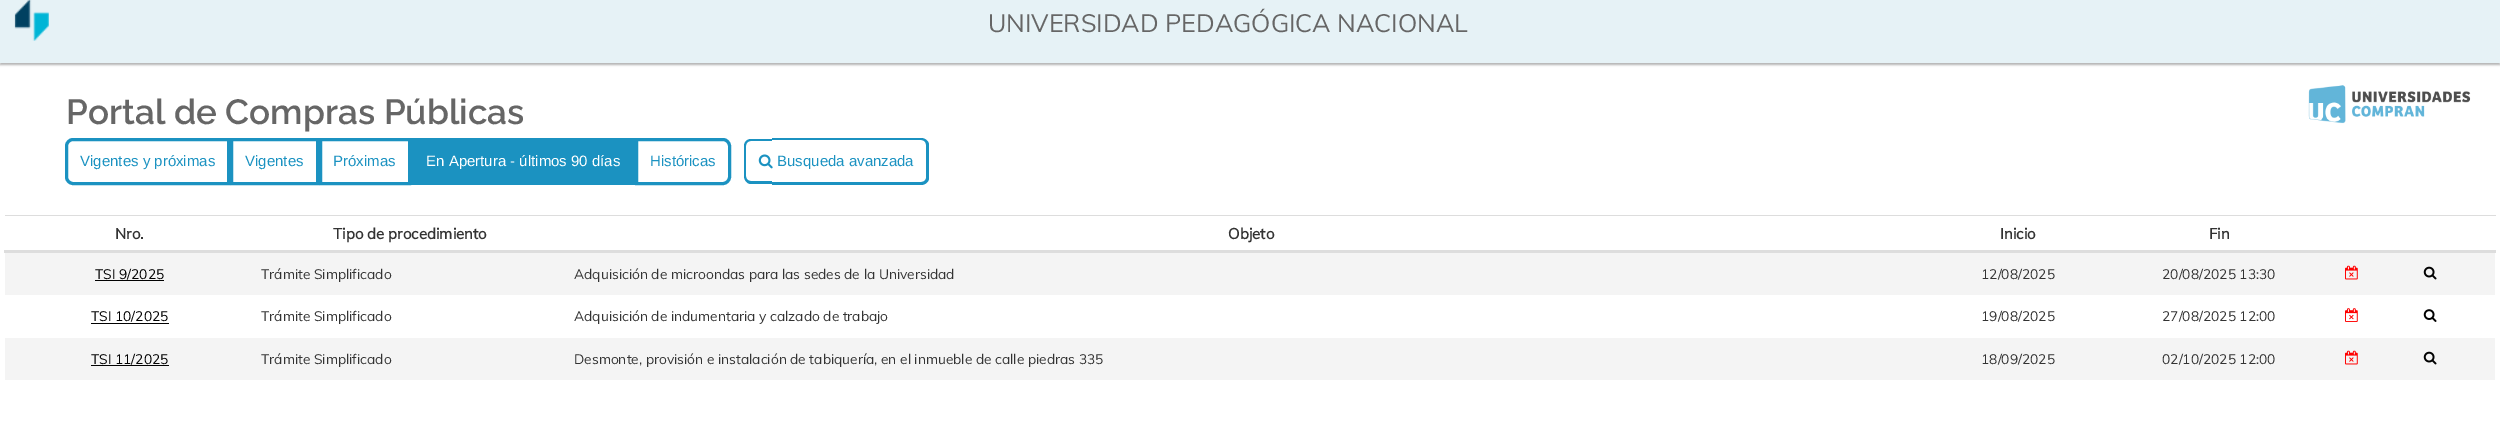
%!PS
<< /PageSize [2500 427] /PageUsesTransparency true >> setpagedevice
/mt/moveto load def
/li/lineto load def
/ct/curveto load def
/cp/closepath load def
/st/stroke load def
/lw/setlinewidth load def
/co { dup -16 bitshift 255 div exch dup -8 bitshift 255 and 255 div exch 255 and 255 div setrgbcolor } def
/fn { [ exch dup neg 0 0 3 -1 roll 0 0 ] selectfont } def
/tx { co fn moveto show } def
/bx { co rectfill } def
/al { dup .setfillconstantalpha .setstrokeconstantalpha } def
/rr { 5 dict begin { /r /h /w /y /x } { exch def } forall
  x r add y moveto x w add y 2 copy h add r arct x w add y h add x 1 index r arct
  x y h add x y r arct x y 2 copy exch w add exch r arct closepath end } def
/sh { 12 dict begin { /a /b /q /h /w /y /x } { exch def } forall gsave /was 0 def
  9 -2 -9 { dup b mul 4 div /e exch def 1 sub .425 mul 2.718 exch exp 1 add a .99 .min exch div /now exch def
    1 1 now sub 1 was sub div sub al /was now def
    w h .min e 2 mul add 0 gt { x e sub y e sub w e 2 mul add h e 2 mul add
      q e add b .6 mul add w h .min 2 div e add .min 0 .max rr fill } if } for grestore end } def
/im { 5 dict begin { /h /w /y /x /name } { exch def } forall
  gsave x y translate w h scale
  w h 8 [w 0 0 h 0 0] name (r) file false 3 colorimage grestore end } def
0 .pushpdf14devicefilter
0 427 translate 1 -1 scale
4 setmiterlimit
0 0 2500 427 16#FFFFFF bx
16#000000 co
0 -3 2500 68 0 1 .3 sh
0 0 2500 63 16#E6F2F6 bx
(media/1.raw) 14 0 35 41 im
(media/2.raw) 2308 85 163 39 im
16#1B92C1 co
3 lw
73 139.5 mt 228.5 139.5 li 228.5 183.5 li 73 183.5 li 69.5 183.5 66.5 180.5 66.5 177 ct 66.5 146 li 66.5 142.5 69.5 139.5 73 139.5 ct cp st
231.5 139.5 86 44 rectstroke
320.5 139.5 89 44 rectstroke
411 138 224 47 16#1B92C1 bx
636.5 139.5 mt 723 139.5 li 726.5 139.5 729.5 142.5 729.5 146 ct 729.5 177 li 729.5 180.5 726.5 183.5 723 183.5 ct 636.5 183.5 li cp st
751 139 mt 772 139 li 772 184 li 751 184 li 747 184 744 180 744 176 ct 744 146 li 744 142 747 139 751 139 ct cp 751 141 mt 772 141 li 772 181 li 751 181 li 748 181 746 179 746 176 ct 746 146 li 746 143 748 141 751 141 ct cp eofill
772 138 mt 921 138 li 925 138 929 141 929 145 ct 929 178 li 929 182 925 185 921 185 ct 772 185 li cp 772 140 mt 921 140 li 924 140 926 142 926 145 ct 926 178 li 926 180 924 182 921 182 ct 772 182 li cp eofill
(media/3.raw) 758 154 15 15 im
5 215 2491 1 16#DDDDDD bx
4 250 2492 3 16#DDDDDD bx
5 253 2490 42 16#F4F4F4 bx
95 280 69 1 16#010101 bx
(media/4.raw) 2345 265 13 15 im
(media/5.raw) 2423 266 14 14 im
91 323 78 1 16#010101 bx
(media/6.raw) 2345 308 13 14 im
(media/7.raw) 2423 309 14 13 im
5 338 2490 42 16#F4F4F4 bx
91 365 78 1 16#010101 bx
(media/4.raw) 2345 350 13 15 im
(media/5.raw) 2423 351 14 14 im
(UNIVERSIDAD PEDAGÓGICA NACIONAL) 988 32 /Muli-Regular 25 16#666666 tx
(Portal de Compras Públicas) 66 124 /Raleway-SemiBold 35 16#666666 tx
(Vigentes y próximas) 80 166 /LiberationSans-Regular 15 16#1B92C1 tx
(Vigentes) 245 166 /LiberationSans-Regular 15 16#1B92C1 tx
(Próximas) 333 166 /LiberationSans-Regular 15 16#1B92C1 tx
(En Apertura - últimos 90 días) 426 166 /LiberationSans-Regular 15 16#FFFFFF tx
(Históricas) 650 166 /LiberationSans-Regular 15 16#1B92C1 tx
(Busqueda avanzada) 777 166 /LiberationSans-Regular 15 16#1B92C1 tx
(Nro.) 115 239 /Muli-Bold 15 16#333333 tx
(Tipo de procedimiento) 333 239 /Muli-Bold 15 16#333333 tx
(Objeto) 1228 239 /Muli-Bold 15 16#333333 tx
(Inicio) 2000 239 /Muli-Bold 15 16#333333 tx
(Fin) 2209 239 /Muli-Bold 15 16#333333 tx
(TSI 9/2025) 95 279 /Muli-Regular 13.75 16#010101 tx
(Trámite Simplificado) 261 279 /Muli-Regular 13.75 16#333333 tx
(Adquisición de microondas para las sedes de la Universidad) 574 279 /Muli-Regular 13.75 16#333333 tx
(12/08/2025) 1981 279 /Muli-Regular 13.75 16#333333 tx
(20/08/2025 13:30) 2162 279 /Muli-Regular 13.75 16#333333 tx
(TSI 10/2025) 91 321 /Muli-Regular 13.75 16#010101 tx
(Trámite Simplificado) 261 321 /Muli-Regular 13.75 16#333333 tx
(Adquisición de indumentaria y calzado de trabajo) 574 321 /Muli-Regular 13.75 16#333333 tx
(19/08/2025) 1981 321 /Muli-Regular 13.75 16#333333 tx
(27/08/2025 12:00) 2162 321 /Muli-Regular 13.75 16#333333 tx
(TSI 11/2025) 91 364 /Muli-Regular 13.75 16#010101 tx
(Trámite Simplificado) 261 364 /Muli-Regular 13.75 16#333333 tx
(Desmonte, provisión e instalación de tabiquería, en el inmueble de calle piedras 335) 574 364 /Muli-Regular 13.75 16#333333 tx
(18/09/2025) 1981 364 /Muli-Regular 13.75 16#333333 tx
(02/10/2025 12:00) 2162 364 /Muli-Regular 13.75 16#333333 tx
.poppdf14devicefilter showpage
